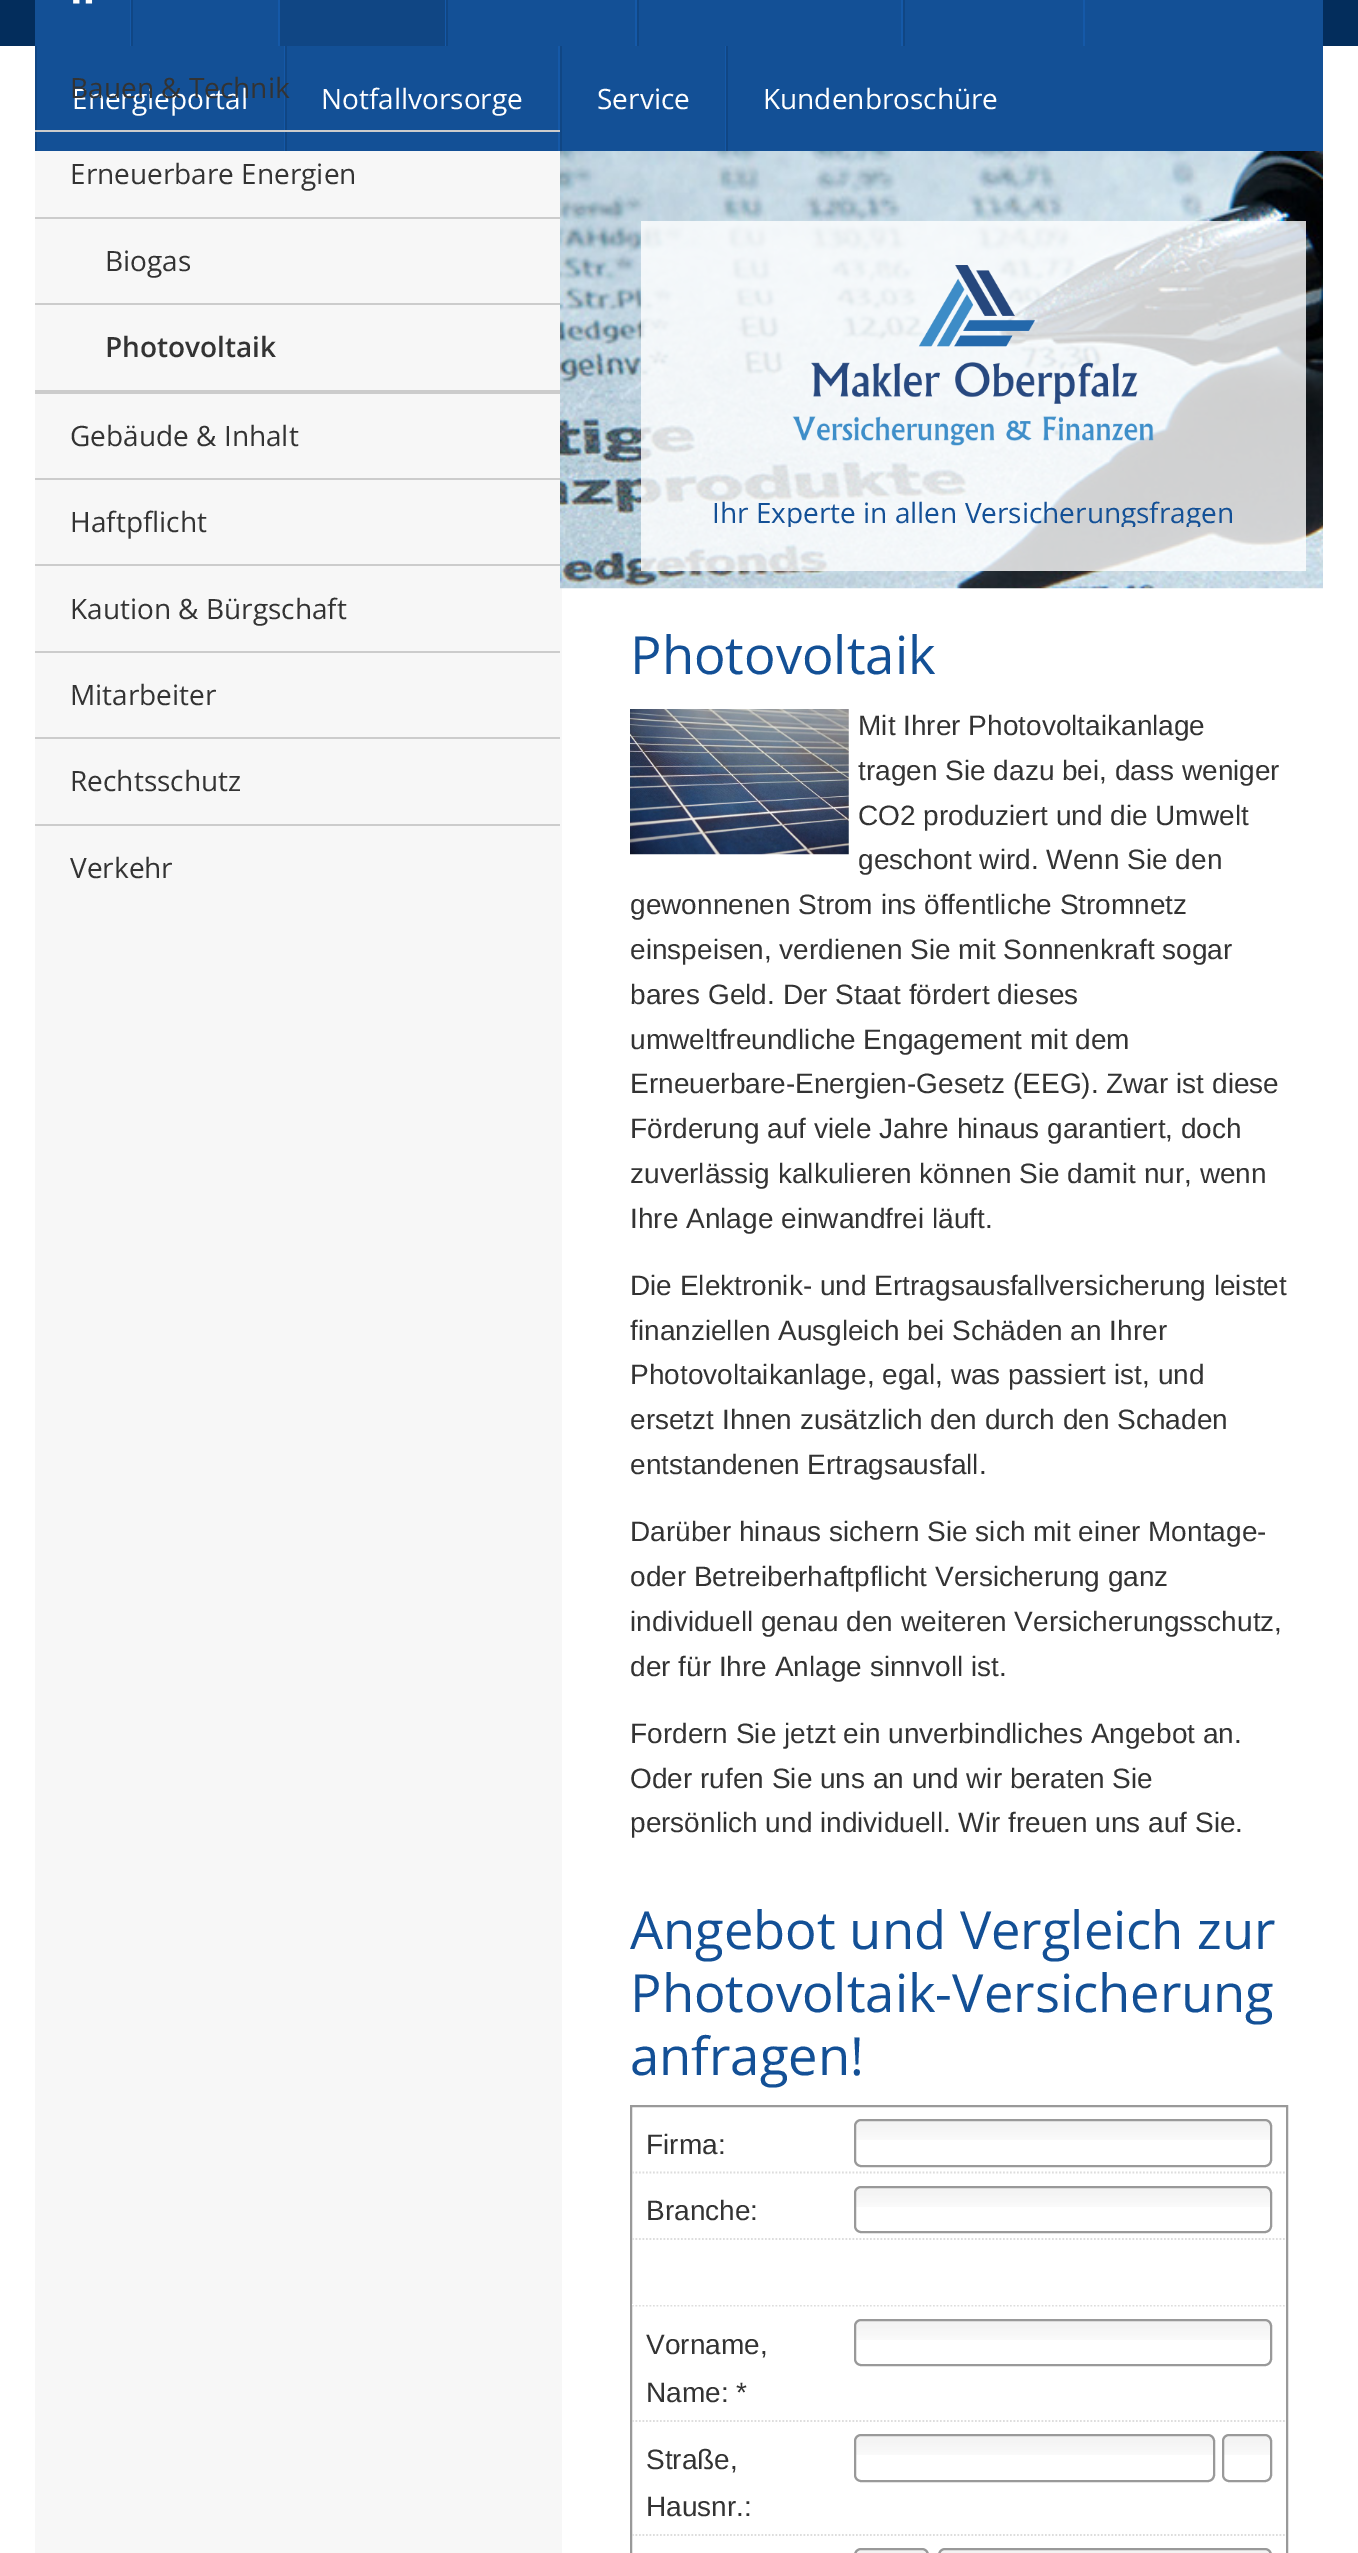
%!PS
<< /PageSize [1358 2553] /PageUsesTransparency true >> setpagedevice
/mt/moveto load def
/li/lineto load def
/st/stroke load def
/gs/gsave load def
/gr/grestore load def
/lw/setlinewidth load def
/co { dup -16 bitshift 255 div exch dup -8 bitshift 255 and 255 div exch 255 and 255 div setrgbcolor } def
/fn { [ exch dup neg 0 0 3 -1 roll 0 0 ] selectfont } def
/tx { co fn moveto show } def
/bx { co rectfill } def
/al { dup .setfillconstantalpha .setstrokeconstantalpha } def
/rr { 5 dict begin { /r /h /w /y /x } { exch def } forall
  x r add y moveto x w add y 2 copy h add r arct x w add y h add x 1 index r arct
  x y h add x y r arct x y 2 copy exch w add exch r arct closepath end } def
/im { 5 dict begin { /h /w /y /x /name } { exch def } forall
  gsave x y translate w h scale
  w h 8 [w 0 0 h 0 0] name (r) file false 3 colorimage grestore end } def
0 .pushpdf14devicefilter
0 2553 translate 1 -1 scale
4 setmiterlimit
0 0 1358 2553 16#FFFFFF bx
0 0 1358 46 16#032D5C bx
35 151 527 2402 16#F7F7F7 bx
35 0 1288 151 16#135096 bx
130 0 1 46 16#1559A8 bx
(media/1.raw) 73 0 20 4 im
278 0 2 46 16#1559A8 bx
131 0 2 46 16#104684 bx
635 0 2 46 16#1559A8 bx
446 0 2 46 16#104684 bx
901 0 2 46 16#1559A8 bx
637 0 2 46 16#104684 bx
1083 0 2 46 16#1559A8 bx
903 0 2 46 16#104684 bx
280 0 165 46 16#104684 bx
445 0 1 46 16#1559A8 bx
284 46 1 105 16#1559A8 bx
35 46 2 105 16#104684 bx
558 46 2 105 16#1559A8 bx
285 46 2 105 16#104684 bx
35 130 525 2 16#CCCCCC bx
35 217 525 2 16#CCCCCC bx
35 390 525 4 16#CCCCCC bx
35 303 525 2 16#CCCCCC bx
35 478 525 2 16#CCCCCC bx
35 564 525 2 16#CCCCCC bx
35 651 525 2 16#CCCCCC bx
35 737 525 2 16#CCCCCC bx
35 824 525 2 16#CCCCCC bx
725 46 1 105 16#1559A8 bx
560 46 2 105 16#104684 bx
726 46 2 105 16#104684 bx
(media/2.raw) 560 151 763 438 im
0.8 al
641 221 665 350 16#FFFFFF bx
1 al
(media/3.raw) 792 265 362 181 im
(media/4.raw) 630 709 219 146 im
16#999999 co
2 lw
631 2106 656 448 rectstroke
16#DDDDDD co
1.8 lw
[1.75 1.75] 0 setdash
632 2172.5 mt 1286 2172.5 li st
(media/5.raw) 854 2121 418 19 im
16#999999 co
2 lw
[] 0 setdash
855 2120 416 46 6 rr st
16#DDDDDD co
1.8 lw
[1.75 1.75] 0 setdash
632 2239 mt 1286 2239 li st
(media/6.raw) 854 2188 418 19 im
16#999999 co
2 lw
[] 0 setdash
855 2187 416 45 6 rr st
16#DDDDDD co
1.8 lw
[1.75 1.75] 0 setdash
632 2305.5 mt 1286 2305.5 li st
632 2304 653 1 16#FFFFFF bx
16#DDDDDD co
632 2421 mt 1286 2421 li st
(media/6.raw) 854 2321 418 19 im
16#999999 co
2 lw
[] 0 setdash
855 2320 416 45 6 rr st
16#DDDDDD co
1.8 lw
[1.75 1.75] 0 setdash
632 2535 mt 1286 2535 li st
(media/7.raw) 854 2436 360 19 im
16#999999 co
2 lw
[] 0 setdash
855 2435 359 46 6 rr st
(media/8.raw) 1222 2436 50 19 im
1223 2435 48 46 6 rr st
(media/9.raw) 854 2550 75 3 im
855 2549 73 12 6 rr st
(media/10.raw) 938 2550 334 3 im
939 2549 332 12 6 rr st
(Erneuerbare Energien) 70 184 /OpenSans-Regular 28 16#333333 tx
(Biogas) 105 271 /OpenSans-Regular 28 16#333333 tx
(Photovoltaik) 105 357 /OpenSans-SemiBold 28 16#333333 tx
(Gebäude & Inhalt) 70 446 /OpenSans-Regular 28 16#333333 tx
(Haftpflicht) 70 532 /OpenSans-Regular 28 16#333333 tx
(Kaution & Bürgschaft) 70 619 /OpenSans-Regular 28 16#333333 tx
(Mitarbeiter) 70 705 /OpenSans-Regular 28 16#333333 tx
(Rechtsschutz) 70 791 /OpenSans-Regular 28 16#333333 tx
(Verkehr) 70 878 /OpenSans-Regular 28 16#333333 tx
(Energieportal) 72 109 /OpenSans-Regular 28 16#FFFFFF tx
(Bauen & Technik) 70 98 /OpenSans-Regular 28 16#333333 tx
(Notfallvorsorge) 321 109 /OpenSans-Regular 28 16#FFFFFF tx
(Service) 597 109 /OpenSans-Regular 28 16#FFFFFF tx
(Kundenbroschüre) 763 109 /OpenSans-Regular 28 16#FFFFFF tx
gs
641 221 665 306 rectclip
(Ihr Experte in allen Versicherungsfragen) 712 523 /OpenSans-Regular 28 16#135096 tx
gr
(Photovoltaik) 630 674 /OpenSans-Regular 52.5 16#135096 tx
(Mit Ihrer Photovoltaikanlage) 858 735 /LiberationSans-Regular 28 16#333333 tx
(tragen Sie dazu bei, dass weniger) 858 780 /LiberationSans-Regular 28 16#333333 tx
(CO2 produziert und die Umwelt) 858 825 /LiberationSans-Regular 28 16#333333 tx
(geschont wird. Wenn Sie den) 858 869 /LiberationSans-Regular 28 16#333333 tx
(gewonnenen Strom ins öffentliche Stromnetz) 630 914 /LiberationSans-Regular 28 16#333333 tx
(einspeisen, verdienen Sie mit Sonnenkraft sogar) 630 959 /LiberationSans-Regular 28 16#333333 tx
(bares Geld. Der Staat fördert dieses) 630 1004 /LiberationSans-Regular 28 16#333333 tx
(umweltfreundliche Engagement mit dem) 630 1049 /LiberationSans-Regular 28 16#333333 tx
(Erneuerbare-Energien-Gesetz \(EEG\). Zwar ist diese) 630 1093 /LiberationSans-Regular 28 16#333333 tx
(Förderung auf viele Jahre hinaus garantiert, doch) 630 1138 /LiberationSans-Regular 28 16#333333 tx
(zuverlässig kalkulieren können Sie damit nur, wenn) 630 1183 /LiberationSans-Regular 28 16#333333 tx
(Ihre Anlage einwandfrei läuft.) 630 1228 /LiberationSans-Regular 28 16#333333 tx
(Die Elektronik- und Ertragsausfallversicherung leistet) 630 1295 /LiberationSans-Regular 28 16#333333 tx
(finanziellen Ausgleich bei Schäden an Ihrer) 630 1340 /LiberationSans-Regular 28 16#333333 tx
(Photovoltaikanlage, egal, was passiert ist, und) 630 1384 /LiberationSans-Regular 28 16#333333 tx
(ersetzt Ihnen zusätzlich den durch den Schaden) 630 1429 /LiberationSans-Regular 28 16#333333 tx
(entstandenen Ertragsausfall.) 630 1474 /LiberationSans-Regular 28 16#333333 tx
(Darüber hinaus sichern Sie sich mit einer Montage-) 630 1541 /LiberationSans-Regular 28 16#333333 tx
(oder Betreiberhaftpflicht Versicherung ganz) 630 1586 /LiberationSans-Regular 28 16#333333 tx
(individuell genau den weiteren Versicherungsschutz,) 630 1631 /LiberationSans-Regular 28 16#333333 tx
(der für Ihre Anlage sinnvoll ist.) 630 1676 /LiberationSans-Regular 28 16#333333 tx
(Fordern Sie jetzt ein unverbindliches Angebot an.) 630 1743 /LiberationSans-Regular 28 16#333333 tx
(Oder rufen Sie uns an und wir beraten Sie) 630 1788 /LiberationSans-Regular 28 16#333333 tx
(persönlich und individuell. Wir freuen uns auf Sie.) 630 1832 /LiberationSans-Regular 28 16#333333 tx
(Angebot und Vergleich zur) 630 1949 /OpenSans-Regular 52.5 16#135096 tx
(Photovoltaik-Versicherung) 630 2012 /OpenSans-Regular 52.5 16#135096 tx
(anfragen!) 630 2075 /OpenSans-Regular 52.5 16#135096 tx
(Firma:) 646 2154 /LiberationSans-Regular 28 16#333333 tx
(Branche:) 646 2220 /LiberationSans-Regular 28 16#333333 tx
(Vorname,) 646 2354 /LiberationSans-Regular 28 16#333333 tx
(Name: *) 646 2402 /LiberationSans-Regular 28 16#333333 tx
(Straße,) 646 2469 /LiberationSans-Regular 28 16#333333 tx
(Hausnr.:) 646 2516 /LiberationSans-Regular 28 16#333333 tx
.poppdf14devicefilter showpage
